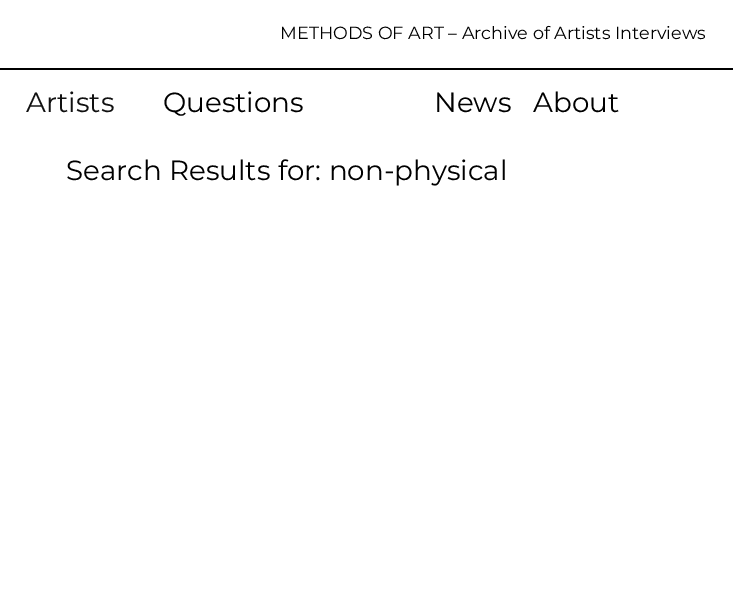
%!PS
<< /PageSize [733 599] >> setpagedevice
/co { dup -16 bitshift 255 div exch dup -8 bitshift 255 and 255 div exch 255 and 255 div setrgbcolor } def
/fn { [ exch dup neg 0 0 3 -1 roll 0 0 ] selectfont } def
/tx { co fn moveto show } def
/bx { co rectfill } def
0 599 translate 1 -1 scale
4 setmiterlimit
0 0 733 599 16#FFFFFF bx
0 68 733 2 16#000000 bx
(METHODS OF ART – Archive of Artists Interviews) 280 39 /Montserrat-Regular 17.6 16#000000 tx
(Artists) 26 112 /Montserrat-Regular 27.75 16#111111 tx
(Questions) 163 112 /Montserrat-Regular 27.75 16#000000 tx
(News) 434 112 /Montserrat-Regular 27.75 16#000000 tx
(About) 533 112 /Montserrat-Regular 27.75 16#000000 tx
(Search Results for: non-physical) 66 180 /Montserrat-Regular 27.75 16#000000 tx
showpage
